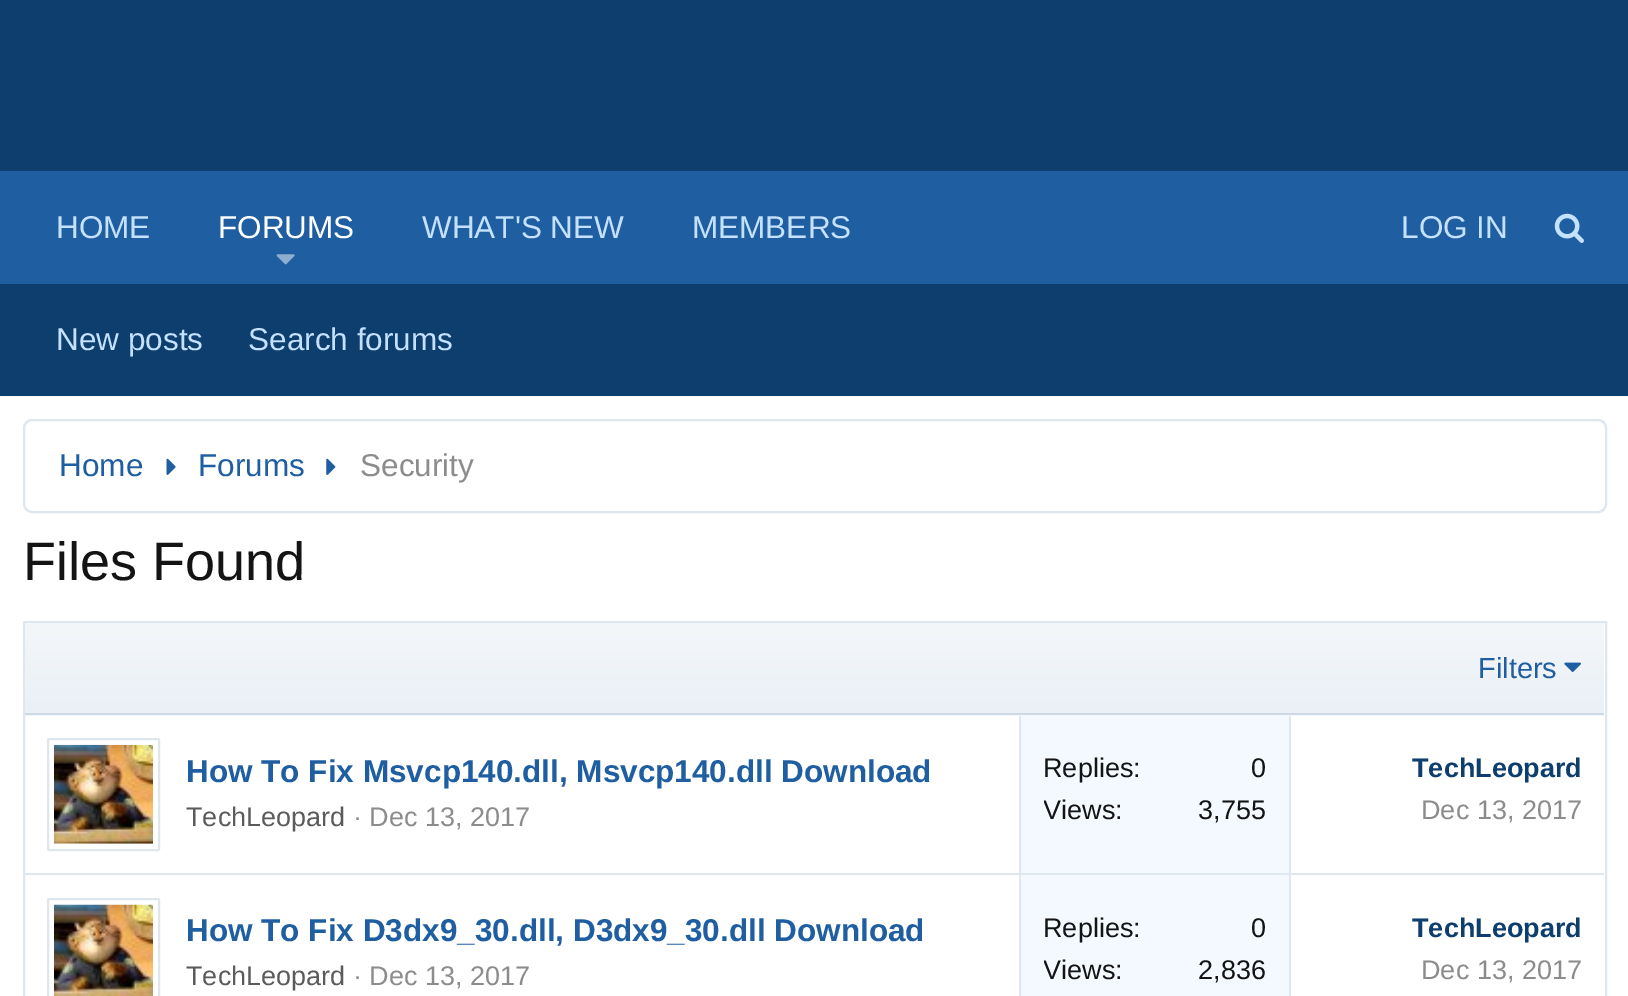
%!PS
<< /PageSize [1628 996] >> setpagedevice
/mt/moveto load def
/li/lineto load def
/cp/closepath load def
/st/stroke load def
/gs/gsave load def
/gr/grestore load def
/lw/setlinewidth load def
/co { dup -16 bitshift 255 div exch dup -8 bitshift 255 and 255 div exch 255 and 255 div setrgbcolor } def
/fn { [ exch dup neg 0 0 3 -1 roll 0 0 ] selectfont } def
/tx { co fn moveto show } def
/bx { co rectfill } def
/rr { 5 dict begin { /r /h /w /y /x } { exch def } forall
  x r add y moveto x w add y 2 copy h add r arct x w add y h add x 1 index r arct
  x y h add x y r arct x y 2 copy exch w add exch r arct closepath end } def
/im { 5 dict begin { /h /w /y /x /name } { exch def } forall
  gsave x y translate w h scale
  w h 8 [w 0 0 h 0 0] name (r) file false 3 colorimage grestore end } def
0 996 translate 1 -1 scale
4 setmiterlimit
0 0 1628 996 16#FFFFFF bx
0 0 1628 171 16#0E3E6E bx
0 171 1628 113 16#1F5FA1 bx
(media/1.raw) 276 254 19 11 im
(media/2.raw) 1554 213 30 30 im
0 284 1628 112 16#0E3E6E bx
16#DEE6EE co
2 lw
24 420 1582 92 8 rr st
(media/3.raw) 166 458 10 17 im
(media/4.raw) 326 458 10 17 im
24 622 1582 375 rectstroke
gs 25 623 mt 1604 623 li 1604 713 li 25 713 li cp clip newpath
<< /ShadingType 2 /ColorSpace /DeviceRGB /Coords [815 713 815 623] /Extend [true true] /Function << /FunctionType 2 /Domain [0 1] /C0 [.918 .941 .965] /C1 [.957 .969 .98] /N 1 >> >> shfill gr
gs 25 715 mt 1604 715 li 1604 716 li 25 716 li cp clip newpath
<< /ShadingType 2 /ColorSpace /DeviceRGB /Coords [815 803 815 713] /Extend [true true] /Function << /FunctionType 2 /Domain [0 1] /C0 [.918 .941 .965] /C1 [.957 .969 .98] /N 1 >> >> shfill gr
25 713 1579 2 16#CDD9E5 bx
(media/5.raw) 1564 662 17 10 im
16#DEE6EE co
48 739 111 111 1 rr st
(media/6.raw) 54 744 99 100 im
1021 716 268 157 16#F3F9FF bx
1289 716 2 159 16#DEE6EE bx
1019 716 2 159 16#DEE6EE bx
25 873 1579 2 16#DEE6EE bx
48 899 111 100 1 rr st
(media/7.raw) 54 904 99 92 im
1021 875 268 121 16#F3F9FF bx
1289 873 2 123 16#DEE6EE bx
1019 873 2 123 16#DEE6EE bx
(HOME) 56 238 /LiberationSans-Regular 31.5 16#C4E1FF tx
(FORUMS) 218 238 /LiberationSans-Regular 31.5 16#FEFEFE tx
(WHAT'S NEW) 422 238 /LiberationSans-Regular 31.5 16#C4E1FF tx
(MEMBERS) 692 238 /LiberationSans-Regular 31.5 16#C4E1FF tx
(LOG IN) 1401 238 /LiberationSans-Regular 31.5 16#C4E1FF tx
(New posts) 56 350 /LiberationSans-Regular 31.5 16#C4E1FF tx
(Search forums) 248 350 /LiberationSans-Regular 31.5 16#C4E1FF tx
(Home) 59 476 /LiberationSans-Regular 31.5 16#1F5FA1 tx
(Forums) 198 476 /LiberationSans-Regular 31.5 16#1F5FA1 tx
(Security) 360 476 /LiberationSans-Regular 31.5 16#8C8C8C tx
(Files Found) 23 580 /LiberationSans-Regular 54 16#141414 tx
(Filters) 1478 678 /LiberationSans-Regular 29 16#1F5FA1 tx
(How To Fix Msvcp140.dll, Msvcp140.dll Download) 186 782 /LiberationSans-Bold 31.5 16#1F5FA1 tx
(TechLeopard) 186 826 /LiberationSans-Regular 27 16#5B5B5B tx
(· Dec 13, 2017) 353 826 /LiberationSans-Regular 27 16#8C8C8C tx
(Replies:) 1043 777 /LiberationSans-Regular 27 16#141414 tx
(0) 1251 777 /LiberationSans-Regular 27 16#141414 tx
gs
1044 792 223 38 rectclip
(Views) 1043 819 /LiberationSans-Regular 27 16#141414 tx
gr
(:) 1115 819 /LiberationSans-Regular 27 16#141414 tx
(3,755) 1198 819 /LiberationSans-Regular 27 16#141414 tx
(TechLeopard) 1412 777 /LiberationSans-Bold 27 16#0E3E6E tx
(Dec 13, 2017) 1421 819 /LiberationSans-Regular 27 16#8C8C8C tx
(How To Fix D3dx9_30.dll, D3dx9_30.dll Download) 186 941 /LiberationSans-Bold 31.5 16#1F5FA1 tx
(TechLeopard) 186 985 /LiberationSans-Regular 27 16#5B5B5B tx
(· Dec 13, 2017) 353 985 /LiberationSans-Regular 27 16#8C8C8C tx
(Replies:) 1043 937 /LiberationSans-Regular 27 16#141414 tx
(0) 1251 937 /LiberationSans-Regular 27 16#141414 tx
gs
1044 952 223 38 rectclip
(Views) 1043 979 /LiberationSans-Regular 27 16#141414 tx
gr
(:) 1115 979 /LiberationSans-Regular 27 16#141414 tx
(2,836) 1198 979 /LiberationSans-Regular 27 16#141414 tx
(TechLeopard) 1412 937 /LiberationSans-Bold 27 16#0E3E6E tx
(Dec 13, 2017) 1421 979 /LiberationSans-Regular 27 16#8C8C8C tx
showpage
